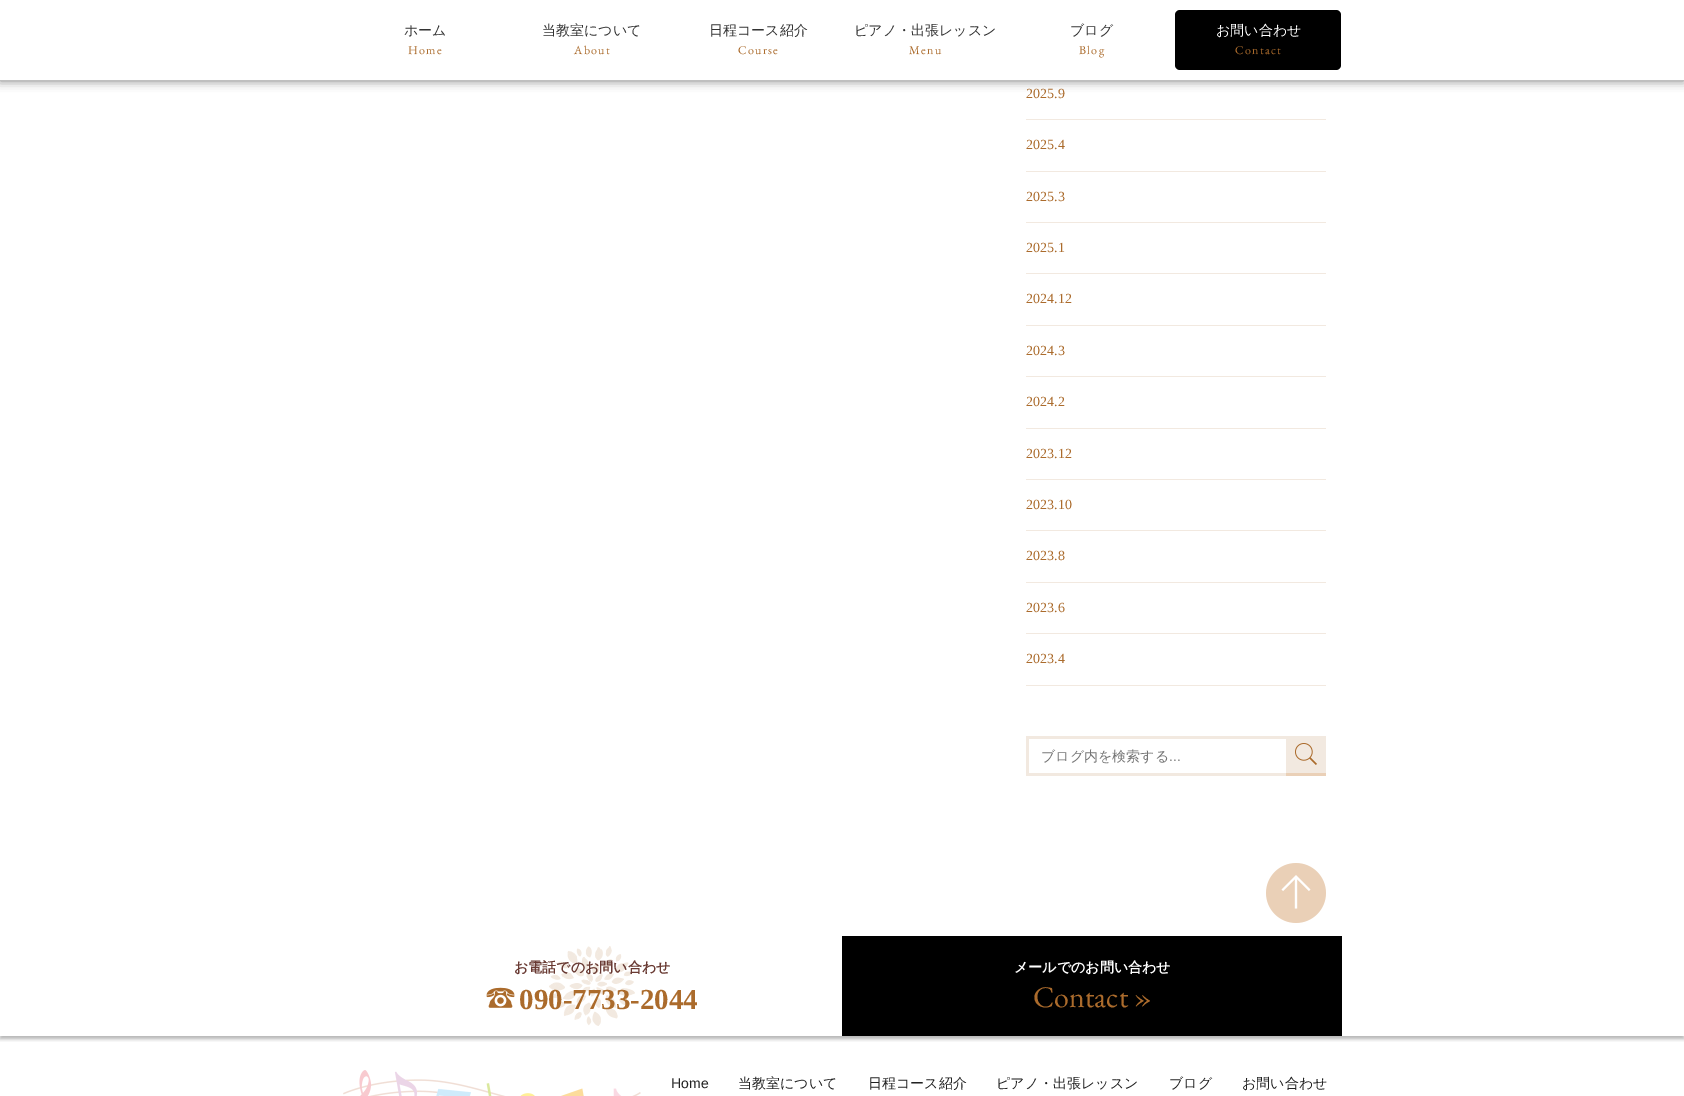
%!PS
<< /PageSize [1684 1096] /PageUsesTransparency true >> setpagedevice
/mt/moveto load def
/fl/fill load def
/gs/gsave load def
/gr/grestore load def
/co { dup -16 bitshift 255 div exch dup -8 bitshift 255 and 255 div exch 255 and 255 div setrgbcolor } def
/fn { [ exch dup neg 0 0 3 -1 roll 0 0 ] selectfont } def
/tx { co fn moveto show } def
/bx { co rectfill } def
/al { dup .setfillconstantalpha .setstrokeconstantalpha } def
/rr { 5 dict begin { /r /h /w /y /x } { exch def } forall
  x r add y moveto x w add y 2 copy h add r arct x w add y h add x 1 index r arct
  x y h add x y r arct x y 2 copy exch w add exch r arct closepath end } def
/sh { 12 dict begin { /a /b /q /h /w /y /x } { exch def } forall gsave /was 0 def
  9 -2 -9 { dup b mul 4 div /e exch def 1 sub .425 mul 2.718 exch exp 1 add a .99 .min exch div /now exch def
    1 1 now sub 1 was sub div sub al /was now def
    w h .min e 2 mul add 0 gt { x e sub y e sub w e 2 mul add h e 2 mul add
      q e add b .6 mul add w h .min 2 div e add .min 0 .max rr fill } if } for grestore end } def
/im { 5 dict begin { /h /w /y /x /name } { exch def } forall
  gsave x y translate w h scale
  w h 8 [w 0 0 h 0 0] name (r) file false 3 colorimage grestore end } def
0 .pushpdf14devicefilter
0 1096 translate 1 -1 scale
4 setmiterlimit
0 0 1684 1096 16#FFFFFF bx
16#000000 co
0 1 1684 80 0 5 .5 sh
0 0 1684 80 16#FFFFFF bx
16#000000 co
1175 10 166 60 5 rr fl
1026 119 300 1 16#F2E9E0 bx
1026 171 300 1 16#F2E9E0 bx
1026 222 300 1 16#F2E9E0 bx
1026 273 300 1 16#F2E9E0 bx
1026 325 300 1 16#F2E9E0 bx
1026 376 300 1 16#F2E9E0 bx
1026 428 300 1 16#F2E9E0 bx
1026 479 300 1 16#F2E9E0 bx
1026 530 300 1 16#F2E9E0 bx
1026 582 300 1 16#F2E9E0 bx
1026 633 300 1 16#F2E9E0 bx
1026 685 300 1 16#F2E9E0 bx
1026 736 260 3 16#F2E9E0 bx
1026 773 260 3 16#F2E9E0 bx
1026 736 3 40 16#F2E9E0 bx
1286 736 40 37 16#F2E9E0 bx
1286 773 40 3 16#EAD0B7 bx
(media/1.raw) 1295 743 22 22 im
gs
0 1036 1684 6 rectclip
16#000000 co
0 939 1684 100 0 2 .3 sh
gr
(media/2.raw) 549 946 86 80 im
(media/3.raw) 486 987 29 21 im
842 936 500 100 16#000000 bx
(media/4.raw) 1266 863 60 60 im
(media/5.raw) 343 1070 298 26 im
(ホーム) 404 35 /WenQuanYiZenHei-Medium 14 16#333333 tx
/EBGaramond-Regular 12 fn
16#AB6B2C co
408 54 mt 1.25 0 (Home) ashow
(当教室について) 542 35 /WenQuanYiZenHei-Medium 14 16#333333 tx
/EBGaramond-Regular 12 fn
16#AB6B2C co
574 54 mt 1.25 0 (About) ashow
(日程コース紹介) 709 35 /WenQuanYiZenHei-Medium 14 16#333333 tx
/EBGaramond-Regular 12 fn
16#AB6B2C co
738 54 mt 1.25 0 (Course) ashow
(ピアノ・出張レッスン) 854 35 /WenQuanYiZenHei-Medium 14 16#333333 tx
/EBGaramond-Regular 12 fn
16#AB6B2C co
909 54 mt 1.25 0 (Menu) ashow
(ブログ) 1070 35 /WenQuanYiZenHei-Medium 14 16#333333 tx
/EBGaramond-Regular 12 fn
16#AB6B2C co
1079 54 mt 1.25 0 (Blog) ashow
(お問い合わせ) 1216 35 /WenQuanYiZenHei-Medium 14 16#FFFFFF tx
/EBGaramond-Regular 12 fn
16#AB6B2C co
1235 54 mt 1.25 0 (Contact) ashow
(2025.9) 1026 98 /LiberationSerif-Regular 14 16#AB6B2C tx
(2025.4) 1026 149 /LiberationSerif-Regular 14 16#AB6B2C tx
(2025.3) 1026 201 /LiberationSerif-Regular 14 16#AB6B2C tx
(2025.1) 1026 252 /LiberationSerif-Regular 14 16#AB6B2C tx
(2024.12) 1026 303 /LiberationSerif-Regular 14 16#AB6B2C tx
(2024.3) 1026 355 /LiberationSerif-Regular 14 16#AB6B2C tx
(2024.2) 1026 406 /LiberationSerif-Regular 14 16#AB6B2C tx
(2023.12) 1026 458 /LiberationSerif-Regular 14 16#AB6B2C tx
(2023.10) 1026 509 /LiberationSerif-Regular 14 16#AB6B2C tx
(2023.8) 1026 560 /LiberationSerif-Regular 14 16#AB6B2C tx
(2023.6) 1026 612 /LiberationSerif-Regular 14 16#AB6B2C tx
(2023.4) 1026 663 /LiberationSerif-Regular 14 16#AB6B2C tx
(ブログ内を検索する) 1041 761 /WenQuanYiZenHei-Medium 14 16#757575 tx
(...) 1169 761 /LiberationSans-Regular 14 16#757575 tx
(お電話でのお問い合わせ) 514 972 /WenQuanYiZenHei-Bold 14 16#693A33 tx
(090-7733-2044) 519 1009 /LiberationSerif-Bold 29 16#AB6B2C tx
(メールでのお問い合わせ) 1014 972 /WenQuanYiZenHei-Bold 14 16#FFFFFF tx
(Contact ») 1033 1007 /EBGaramond-Regular 30 16#AB6B2C tx
(Home) 671 1088 /LiberationSans-Regular 14 16#222222 tx
(当教室について) 738 1088 /WenQuanYiZenHei-Medium 14 16#222222 tx
(日程コース紹介) 868 1088 /WenQuanYiZenHei-Medium 14 16#222222 tx
(ピアノ・出張レッスン) 996 1088 /WenQuanYiZenHei-Medium 14 16#222222 tx
(ブログ) 1169 1088 /WenQuanYiZenHei-Medium 14 16#222222 tx
(お問い合わせ) 1242 1088 /WenQuanYiZenHei-Medium 14 16#222222 tx
.poppdf14devicefilter showpage
